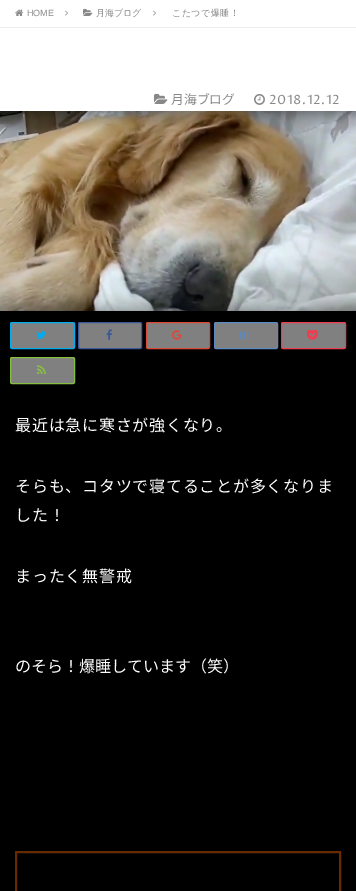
%!PS
<< /PageSize [356 891] >> setpagedevice
/mt/moveto load def
/fl/fill load def
/st/stroke load def
/gs/gsave load def
/gr/grestore load def
/lw/setlinewidth load def
/co { dup -16 bitshift 255 div exch dup -8 bitshift 255 and 255 div exch 255 and 255 div setrgbcolor } def
/fn { [ exch dup neg 0 0 3 -1 roll 0 0 ] selectfont } def
/tx { co fn moveto show } def
/bx { co rectfill } def
/rr { 5 dict begin { /r /h /w /y /x } { exch def } forall
  x r add y moveto x w add y 2 copy h add r arct x w add y h add x 1 index r arct
  x y h add x y r arct x y 2 copy exch w add exch r arct closepath end } def
/im { 5 dict begin { /h /w /y /x /name } { exch def } forall
  gsave x y translate w h scale
  w h 8 [w 0 0 h 0 0] name (r) file false 3 colorimage grestore end } def
0 891 translate 1 -1 scale
4 setmiterlimit
0 0 356 891 16#000000 bx
0 0 356 27 16#FFFFFF bx
0 27 356 1 16#EEEEEE bx
(media/1.raw) 15 9 9 7 im
(media/2.raw) 65 10 3 6 im
(media/3.raw) 83 8 10 8 im
(media/2.raw) 153 10 3 6 im
0 28 356 83 16#FFFFFF bx
(media/4.raw) 154 93 14 11 im
(media/5.raw) 254 94 11 11 im
(media/6.raw) 0 111 356 200 im
16#808080 co
10.5 322.5 64 26 1.5 rr gs fl gr
16#00ACEE co
st
(media/7.raw) 36 331 10 8 im
16#808080 co
78.5 322.5 63 26 1.5 rr gs fl gr
16#3B5998 co
st
(media/8.raw) 106 329 6 11 im
16#808080 co
146.5 322.5 63 26 1.5 rr gs fl gr
16#DB4A39 co
st
(media/9.raw) 172 330 10 10 im
16#808080 co
214.5 322.5 63 26 1.5 rr gs fl gr
16#5D8AC1 co
st
16#808080 co
281.5 322.5 64 26 1.5 rr gs fl gr
16#F03E51 co
st
(media/10.raw) 307 330 11 10 im
16#808080 co
10.5 357.5 64 26 1.5 rr gs fl gr
16#87C040 co
st
(media/11.raw) 37 365 9 9 im
16#662C00 co
2 lw
16 852 324 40 rectstroke
(HOME) 27 16 /LiberationSans-Regular 9 16#888888 tx
(月海ブログ) 96 16 /WenQuanYiZenHei-Medium 9 16#888888 tx
172 16 mt .5 0 (こたつで爆睡！) ashow
(月海ブログ) 171 104 /NotoSansJP-Regular 12.75 16#888888 tx
/ProzaLibre-Regular 12.75 fn
269 104 mt .6 0 (2018.12.12) ashow
(B!) 239 339 /LiberationSerif-Bold 11 16#5D8AC1 tx
/NotoSansJP-Regular 16 fn
16#FFFFFF co
15 431 mt .75 0 (最近は急に寒さが強くなり。) ashow
15 492 mt .75 0 (そらも、コタツで寝てることが多くなりま) ashow
15 521 mt .75 0 (した！) ashow
15 582 mt .75 0 (まったく無警戒) ashow
(のそら！爆睡しています（笑）) 15 672 /NotoSansJP-Regular 16 16#FFFFFF tx
showpage
